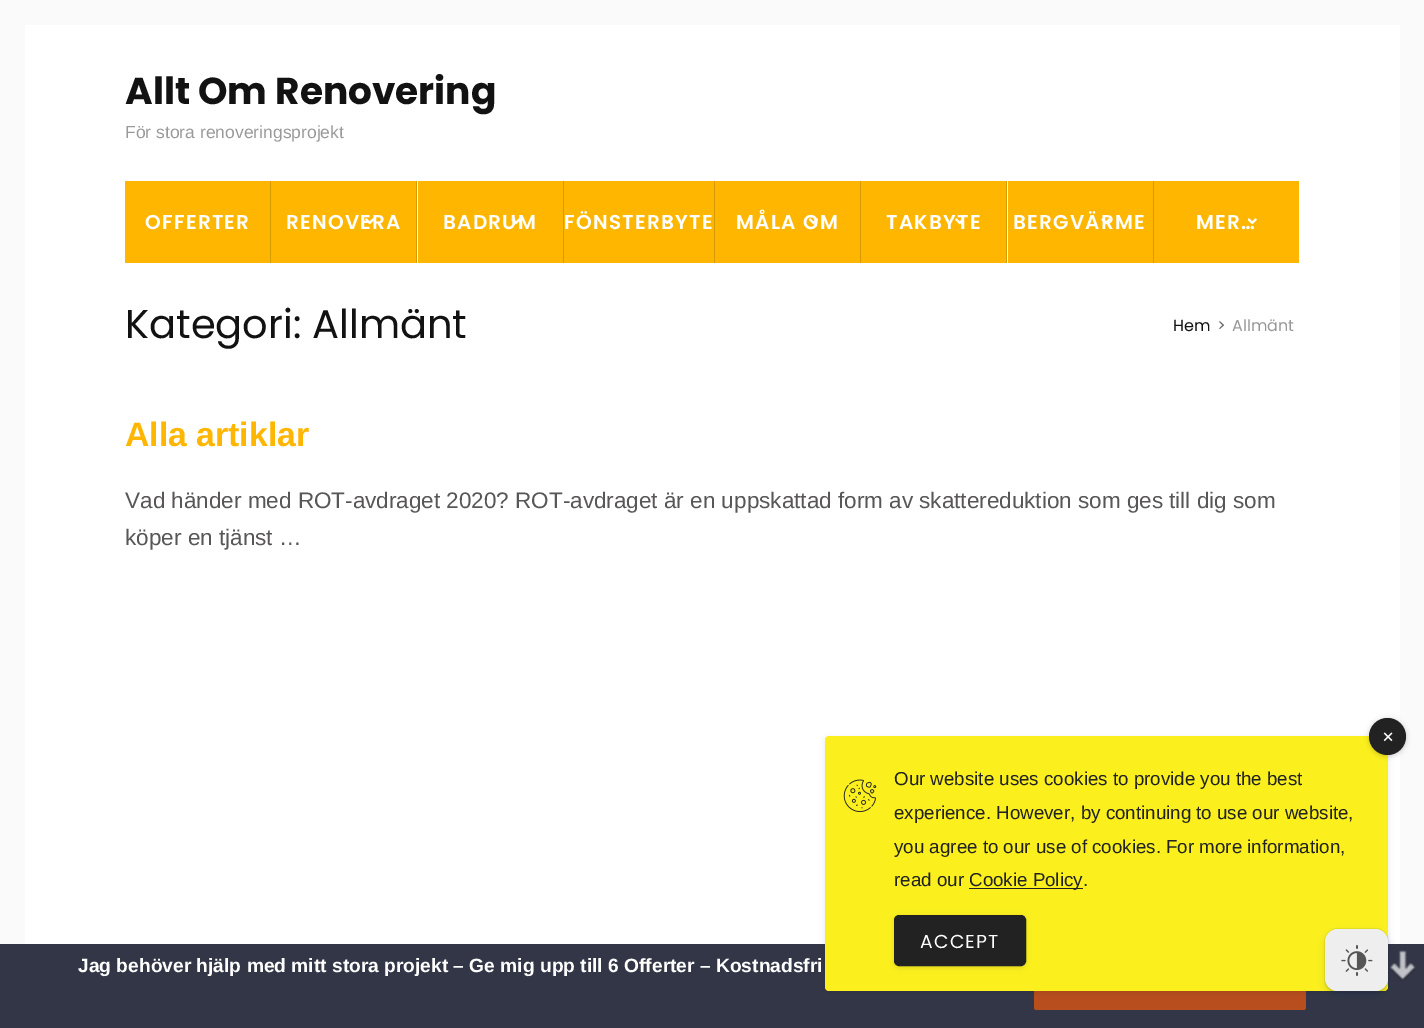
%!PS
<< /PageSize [1424 1028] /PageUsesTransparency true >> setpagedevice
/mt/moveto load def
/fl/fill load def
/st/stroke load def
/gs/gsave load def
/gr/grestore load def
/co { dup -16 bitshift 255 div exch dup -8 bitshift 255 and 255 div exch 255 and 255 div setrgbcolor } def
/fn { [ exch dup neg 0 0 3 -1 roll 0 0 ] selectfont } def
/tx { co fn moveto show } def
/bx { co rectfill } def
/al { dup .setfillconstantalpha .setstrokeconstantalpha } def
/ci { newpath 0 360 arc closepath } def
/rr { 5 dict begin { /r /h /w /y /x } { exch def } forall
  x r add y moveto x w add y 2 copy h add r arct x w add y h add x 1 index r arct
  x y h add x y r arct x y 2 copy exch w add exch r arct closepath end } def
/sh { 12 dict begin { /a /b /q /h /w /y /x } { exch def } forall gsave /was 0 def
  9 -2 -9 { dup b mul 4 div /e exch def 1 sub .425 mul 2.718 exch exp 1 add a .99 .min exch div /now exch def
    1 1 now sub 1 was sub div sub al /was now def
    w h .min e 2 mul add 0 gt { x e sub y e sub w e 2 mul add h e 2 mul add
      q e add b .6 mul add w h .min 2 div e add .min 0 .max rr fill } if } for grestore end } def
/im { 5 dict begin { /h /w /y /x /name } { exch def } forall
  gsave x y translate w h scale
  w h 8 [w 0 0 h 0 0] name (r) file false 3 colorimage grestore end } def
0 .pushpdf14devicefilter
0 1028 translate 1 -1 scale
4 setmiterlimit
0 0 1424 1028 16#FAFAFA bx
25 25 1375 919 16#FFFFFF bx
270 181 1 82 16#D69A02 bx
125 181 145 82 16#FFB600 bx
416 181 1 82 16#D69A02 bx
271 181 145 82 16#FFB600 bx
563 181 1 82 16#D69A02 bx
418 181 145 82 16#FFB600 bx
714 181 1 82 16#D69A02 bx
564 181 150 82 16#FFB600 bx
860 181 1 82 16#D69A02 bx
715 181 145 82 16#FFB600 bx
1006 181 1 82 16#D69A02 bx
861 181 145 82 16#FFB600 bx
1153 181 1 82 16#D69A02 bx
1008 181 145 82 16#FFB600 bx
1154 181 145 82 16#FFB600 bx
0 944 1424 84 16#323647 bx
16#B84D1E co
1034 963 272 47 2.5 rr fl
(media/11.raw) 1390 950 26 31 im
16#000000 co
825 738 563 255 4 3 .1 sh
16#FBF01E co
825 736 563 255 4 rr fl
16#000000 co
1369 719 37 37 18.5 2.5 .2 sh
16#222222 co
1387.5 736.5 18.5 ci fl
(media/8.raw) 1383 732 10 10 im
(media/9.raw) 843 779 34 33 im
969 888 114 1 16#222222 bx
16#000000 co
894 916 132 52 5 2.5 .1 sh
16#222222 co
894.5 915.5 131 50 4.5 rr gs fl gr
st
0.08 al
16#091E42 co
1324.5 928.5 64 64 13.5 rr st
1 al
1328 936 57 58 10 5 .25 sh
16#EEEEEE co
1325 929 63 62 13 rr fl
(media/10.raw) 1341 945 32 31 im
(Allt Om Renovering) 125 104 /Poppins-Bold 37.5 16#121212 tx
(För stora renoveringsprojekt) 125 138 /LiberationSans-Regular 17.5 16#999999 tx
/Poppins-SemiBold 20 fn
16#FFFFFF co
145 229 mt 1.25 0 (OFFERTER) ashow
286 229 mt 1.25 0 (RENOVERA) ashow
(media/1.raw) 365 218 9 7 im
443 229 mt 1.25 0 (BADRUM) ashow
(media/2.raw) 511 218 9 7 im
564 229 mt 1.25 0 (FÖNSTERBYTE) ashow
(media/3.raw) 664 218 7 7 im
736 229 mt 1.25 0 (MÅLA OM) ashow
(media/4.raw) 809 218 9 7 im
886 229 mt 1.25 0 (TAKBYTE) ashow
(media/5.raw) 955 218 9 7 im
1013 229 mt 1.25 0 (BERGVÄRME) ashow
(media/6.raw) 1101 218 9 7 im
1196 229 mt 1.25 0 (MER…) ashow
(media/7.raw) 1248 218 9 7 im
(Kategori: Allmänt) 125 338 /Poppins-Regular 40 16#121212 tx
(Hem) 1173 331 /Poppins-Regular 16 16#121212 tx
(>) 1217 331 /Poppins-Regular 16 16#666666 tx
(Allmänt) 1232 331 /Poppins-Regular 16 16#999999 tx
(Alla artiklar) 125 446 /LiberationSans-Bold 33.75 16#FFB600 tx
(Vad händer med ROT-avdraget 2020? ROT-avdraget är en uppskattad form av skattereduktion som ges till dig som) 125 508 /LiberationSans-Regular 22.5 16#585656 tx
(köper en tjänst …) 125 545 /LiberationSans-Regular 22.5 16#585656 tx
(Our website uses cookies to provide you the best) 894 785 /LiberationSans-Regular 18.75 16#222222 tx
(experience. However, by continuing to use our website,) 894 819 /LiberationSans-Regular 18.75 16#222222 tx
(you agree to our use of cookies. For more information,) 894 853 /LiberationSans-Regular 18.75 16#222222 tx
(read our) 894 886 /LiberationSans-Regular 18.75 16#222222 tx
(Cookie Policy.) 969 886 /LiberationSans-Regular 18.75 16#222222 tx
/Poppins-Regular 18.75 fn
16#FFFFFF co
920 948 mt 1.25 0 (ACCEPT) ashow
(Jag behöver hjälp med mitt stora projekt – Ge mig upp till 6 Offerter – Kostnadsfri) 78 972 /LiberationSans-Bold 19.2 16#FFFFFF tx
.poppdf14devicefilter showpage
